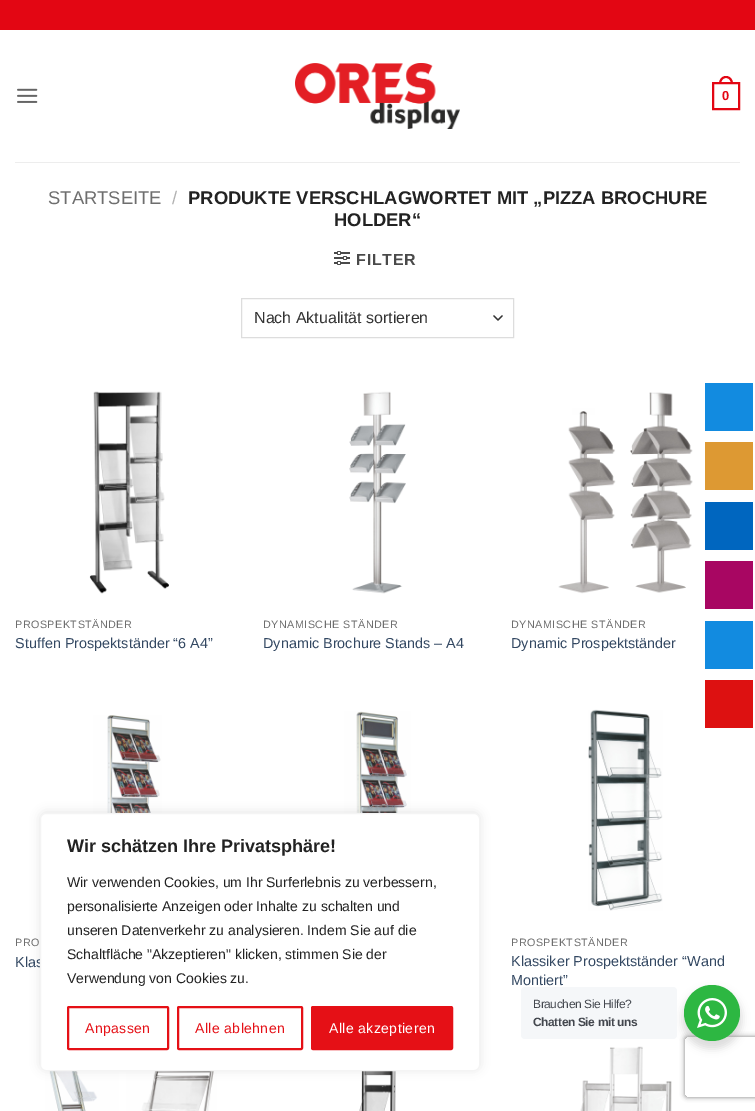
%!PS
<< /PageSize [755 1111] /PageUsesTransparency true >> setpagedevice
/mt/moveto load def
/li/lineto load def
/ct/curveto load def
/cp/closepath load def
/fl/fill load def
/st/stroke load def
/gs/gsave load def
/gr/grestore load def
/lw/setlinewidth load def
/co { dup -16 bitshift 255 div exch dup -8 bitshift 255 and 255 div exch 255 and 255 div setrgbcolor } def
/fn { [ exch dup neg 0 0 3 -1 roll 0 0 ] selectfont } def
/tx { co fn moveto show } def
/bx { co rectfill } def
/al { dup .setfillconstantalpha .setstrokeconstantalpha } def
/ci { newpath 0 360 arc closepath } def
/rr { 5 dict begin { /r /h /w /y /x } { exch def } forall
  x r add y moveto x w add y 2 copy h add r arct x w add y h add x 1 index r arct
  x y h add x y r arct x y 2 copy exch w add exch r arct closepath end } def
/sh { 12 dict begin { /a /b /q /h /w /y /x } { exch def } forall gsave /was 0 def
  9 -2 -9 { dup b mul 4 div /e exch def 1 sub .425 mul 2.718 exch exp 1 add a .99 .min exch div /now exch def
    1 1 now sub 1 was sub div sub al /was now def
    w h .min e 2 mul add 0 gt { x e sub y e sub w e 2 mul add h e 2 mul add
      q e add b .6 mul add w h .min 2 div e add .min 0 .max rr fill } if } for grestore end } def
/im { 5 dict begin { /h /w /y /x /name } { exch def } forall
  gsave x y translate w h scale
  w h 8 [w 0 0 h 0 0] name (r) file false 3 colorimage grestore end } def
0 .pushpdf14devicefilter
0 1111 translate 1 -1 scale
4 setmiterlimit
0 0 755 1111 16#FFFFFF bx
0 0 755 30 16#E30613 bx
(media/1.raw) 17 88 21 15 im
(media/2.raw) 295 63 165 66 im
2 lw
713 83 26 26 rectstroke
726 76 mt 730.5 76 733 80 733 84 ct 719 84 li 719 80 721.5 76 726 76 ct cp 726 78 mt 729.5 78 731 81 731 84 ct 721 84 li 721 81 722.5 78 726 78 ct cp eofill
15 162 725 1 16#EDEDED bx
(media/3.raw) 334 251 16 14 im
16#333333 co
1.3 lw
1 setlinecap
1 setlinejoin
494 316 mt 498 320 li 502 316 li st
16#DDDDDD co
1 lw
0 setlinecap
0 setlinejoin
241.5 298.5 272 39 rectstroke
(media/4.raw) 89 391 80 203 im
(media/5.raw) 349 391 57 203 im
(media/6.raw) 558 392 135 202 im
(media/7.raw) 344 711 67 102 im
(media/8.raw) 93 715 69 98 im
(media/9.raw) 588 709 75 202 im
(media/10.raw) 45 1070 173 41 im
(media/11.raw) 359 1071 37 40 im
(media/12.raw) 580 1046 92 65 im
705 383 48 48 16#128BE0 bx
705 442 48 48 16#DD9933 bx
705 502 48 48 16#0066BF bx
705 561 48 48 16#A80662 bx
705 621 48 48 16#128BE0 bx
705 680 48 48 16#DD1111 bx
16#ACABAB co
40 812 440 258 6 5 .3 sh
16#000000 co
682 989 60 60 30 4 .14 sh
gs
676 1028 mt 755 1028 li 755 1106 li 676 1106 li cp 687 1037 mt 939 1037 li 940 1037 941 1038 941 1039 ct 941 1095 li 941 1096 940 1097 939 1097 ct 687 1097 li 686 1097 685 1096 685 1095 ct 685 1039 li 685 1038 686 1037 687 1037 ct cp eoclip newpath
16#808080 co
685 1037 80 60 2 2.5 1 sh
gr
16#F5F7F9 co
521 987 156 52 4 rr fl
16#2DB742 co
712 1013 28 ci fl
(media/13.raw) 697 998 30 30 im
(0) 722 100 /LiberationSans-Bold 13 16#E30613 tx
(STARTSEITE) 48 204 /LiberationSans-Regular 18.4 16#6E6E6E tx
(/) 172 204 /LiberationSans-Regular 18.4 16#B2B2B2 tx
(PRODUKTE VERSCHLAGWORTET MIT „PIZZA BROCHURE) 188 204 /LiberationSans-Bold 18.4 16#222222 tx
(HOLDER“) 334 226 /LiberationSans-Bold 18.4 16#222222 tx
/LiberationSans-Bold 16 fn
16#4A4A4A co
356 265 mt .75 0 (FILTER) ashow
(Nach Aktualität sortieren) 254 323 /LiberationSans-Regular 16 16#333333 tx
/LiberationSans-Regular 10.75 fn
16#6E6E6E co
15 628 mt .5 0 (PROSPEKTSTÄNDER) ashow
(Stuffen Prospektständer “6 A4”) 15 648 /LiberationSans-Regular 14.4 16#334862 tx
/LiberationSans-Regular 10.75 fn
16#6E6E6E co
263 628 mt .5 0 (DYNAMISCHE STÄNDER) ashow
(Dynamic Brochure Stands – A4) 263 648 /LiberationSans-Regular 14.4 16#334862 tx
/LiberationSans-Regular 10.75 fn
16#6E6E6E co
511 628 mt .5 0 (DYNAMISCHE STÄNDER) ashow
(Dynamic Prospektständer) 511 648 /LiberationSans-Regular 14.4 16#334862 tx
/LiberationSans-Regular 10.75 fn
16#6E6E6E co
15 946 mt .5 0 (PRO) ashow
(Klas) 15 967 /LiberationSans-Regular 14.4 16#334862 tx
/LiberationSans-Regular 10.75 fn
16#6E6E6E co
511 946 mt .5 0 (PROSPEKTSTÄNDER) ashow
(Klassiker Prospektständer “Wand) 511 966 /LiberationSans-Regular 14.4 16#334862 tx
(Montiert”) 511 985 /LiberationSans-Regular 14.4 16#334862 tx
16#FFFFFF co
40.5 813.5 439 257 5.5 rr gs fl gr
16#F4F4F4 co
st
(Wir schätzen Ihre Privatsphäre!) 67 852 /LiberationSans-Bold 18 16#222222 tx
(Wir verwenden Cookies, um Ihr Surferlebnis zu verbessern,) 67 887 /LiberationSans-Regular 14 16#222222 tx
(personalisierte Anzeigen oder Inhalte zu schalten und) 67 911 /LiberationSans-Regular 14 16#222222 tx
(unseren Datenverkehr zu analysieren. Indem Sie auf die) 67 935 /LiberationSans-Regular 14 16#222222 tx
(Schaltfläche "Akzeptieren" klicken, stimmen Sie der) 67 959 /LiberationSans-Regular 14 16#222222 tx
(Verwendung von Cookies zu.) 67 983 /LiberationSans-Regular 14 16#222222 tx
16#E51016 co
2 lw
68 1007 100 42 1 rr st
85 1033 mt .4 0 (Anpassen) ashow
178 1007 124 42 1 rr st
195 1033 mt .4 0 (Alle ablehnen) ashow
312 1007 140 42 1 rr gs fl gr
st
16#FFFFFF co
329 1033 mt .4 0 (Alle akzeptieren) ashow
/LiberationSans-Regular 12 fn
16#43474E co
533 1008 mt -.4 0 (Brauchen Sie Hilfe?) ashow
/LiberationSans-Bold 12 fn
533 1026 mt -.4 0 (Chatten Sie mit uns) ashow
.poppdf14devicefilter showpage
